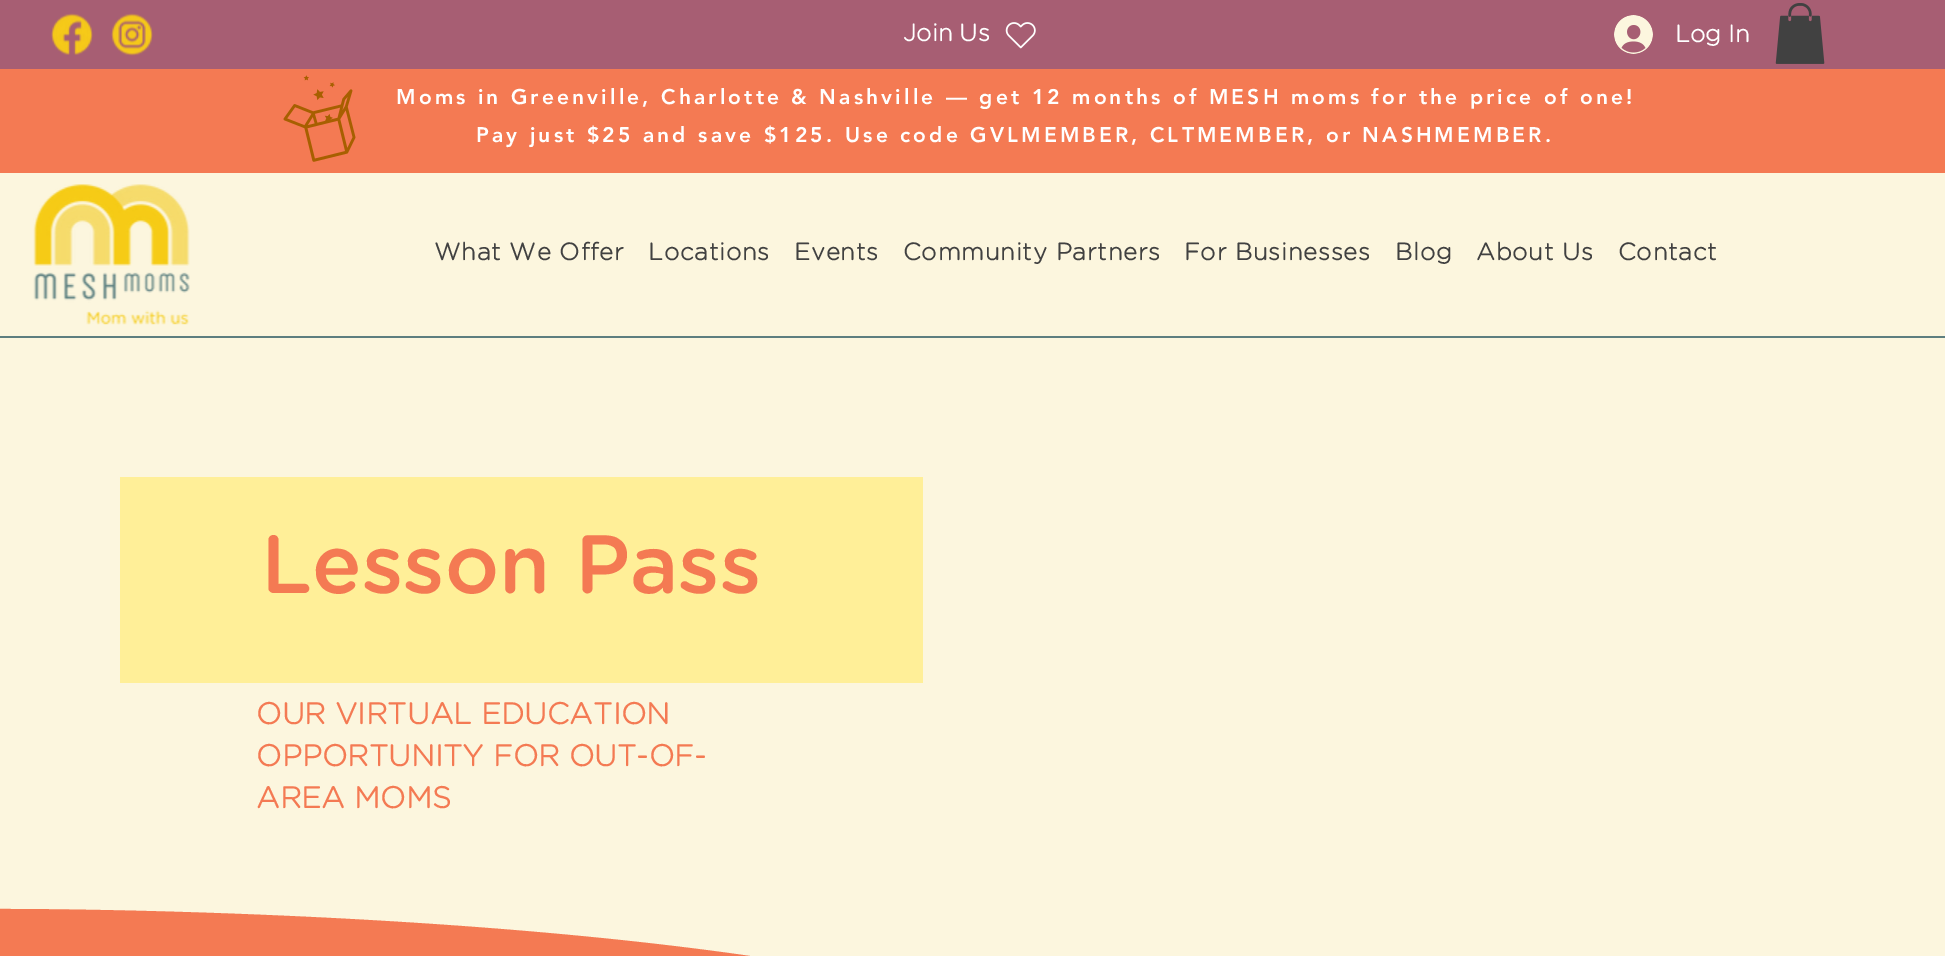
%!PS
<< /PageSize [1945 956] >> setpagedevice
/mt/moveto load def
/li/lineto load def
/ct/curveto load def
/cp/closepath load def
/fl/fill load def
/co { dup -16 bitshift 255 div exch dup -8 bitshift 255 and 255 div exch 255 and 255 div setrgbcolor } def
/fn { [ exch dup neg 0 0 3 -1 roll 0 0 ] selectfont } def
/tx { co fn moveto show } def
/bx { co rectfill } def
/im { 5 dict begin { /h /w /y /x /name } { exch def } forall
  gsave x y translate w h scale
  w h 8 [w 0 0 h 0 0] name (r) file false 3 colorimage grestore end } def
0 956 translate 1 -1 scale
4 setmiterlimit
0 0 1945 956 16#FCF6DE bx
0 0 1945 69 16#A75E73 bx
(media/1.raw) 51 13 42 42 im
(media/2.raw) 111 13 42 43 im
(media/3.raw) 1005 22 31 27 im
(media/4.raw) 1614 15 39 39 im
(media/5.raw) 1775 3 50 61 im
0 69 1945 104 16#F47A53 bx
(media/6.raw) 283 75 73 87 im
(media/7.raw) 33 184 157 141 im
0 336 1945 2 16#5D7E7F bx
120 477 803 206 16#FFEF98 bx
16#F47A53 co
1945 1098 mt 1945 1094 li 1484 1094 1245 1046 848 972 ct 497 907 0 909 0 909 ct 0 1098 li cp fl
(Join Us) 903 41 /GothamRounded-Bold 24 16#FFFFFF tx
(Log In) 1675 42 /GothamRounded-Bold 24 16#FFFFFF tx
/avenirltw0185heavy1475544-Black 21 fn
396 104 mt 3.15 0 (Moms in Greenville, Charlotte & Nashville — get 12 months of MESH moms for the price of one!) ashow
476 142 mt 3.15 0 (Pay just $25 and save $125. Use code GVLMEMBER, CLTMEMBER, or NASHMEMBER.) ashow
/GothamRounded-Bold 24 fn
16#414141 co
434 260 mt .75 0 (What We Offer) ashow
648 260 mt .75 0 (Locations) ashow
794 260 mt .75 0 (Events) ashow
903 260 mt .75 0 (Community Partners) ashow
1184 260 mt .75 0 (For Businesses) ashow
1395 260 mt .75 0 (Blog) ashow
1476 260 mt .75 0 (About Us) ashow
1618 260 mt .75 0 (Contact) ashow
(Lesson Pass) 261 593 /GothamRounded-Medium 82.5 16#F47A53 tx
(OUR VIRTUAL EDUCATION) 256 724 /GothamRounded-Bold 30 16#F47A53 tx
(OPPORTUNITY FOR OUT-OF-) 256 766 /GothamRounded-Bold 30 16#F47A53 tx
(AREA MOMS) 256 808 /GothamRounded-Bold 30 16#F47A53 tx
showpage
